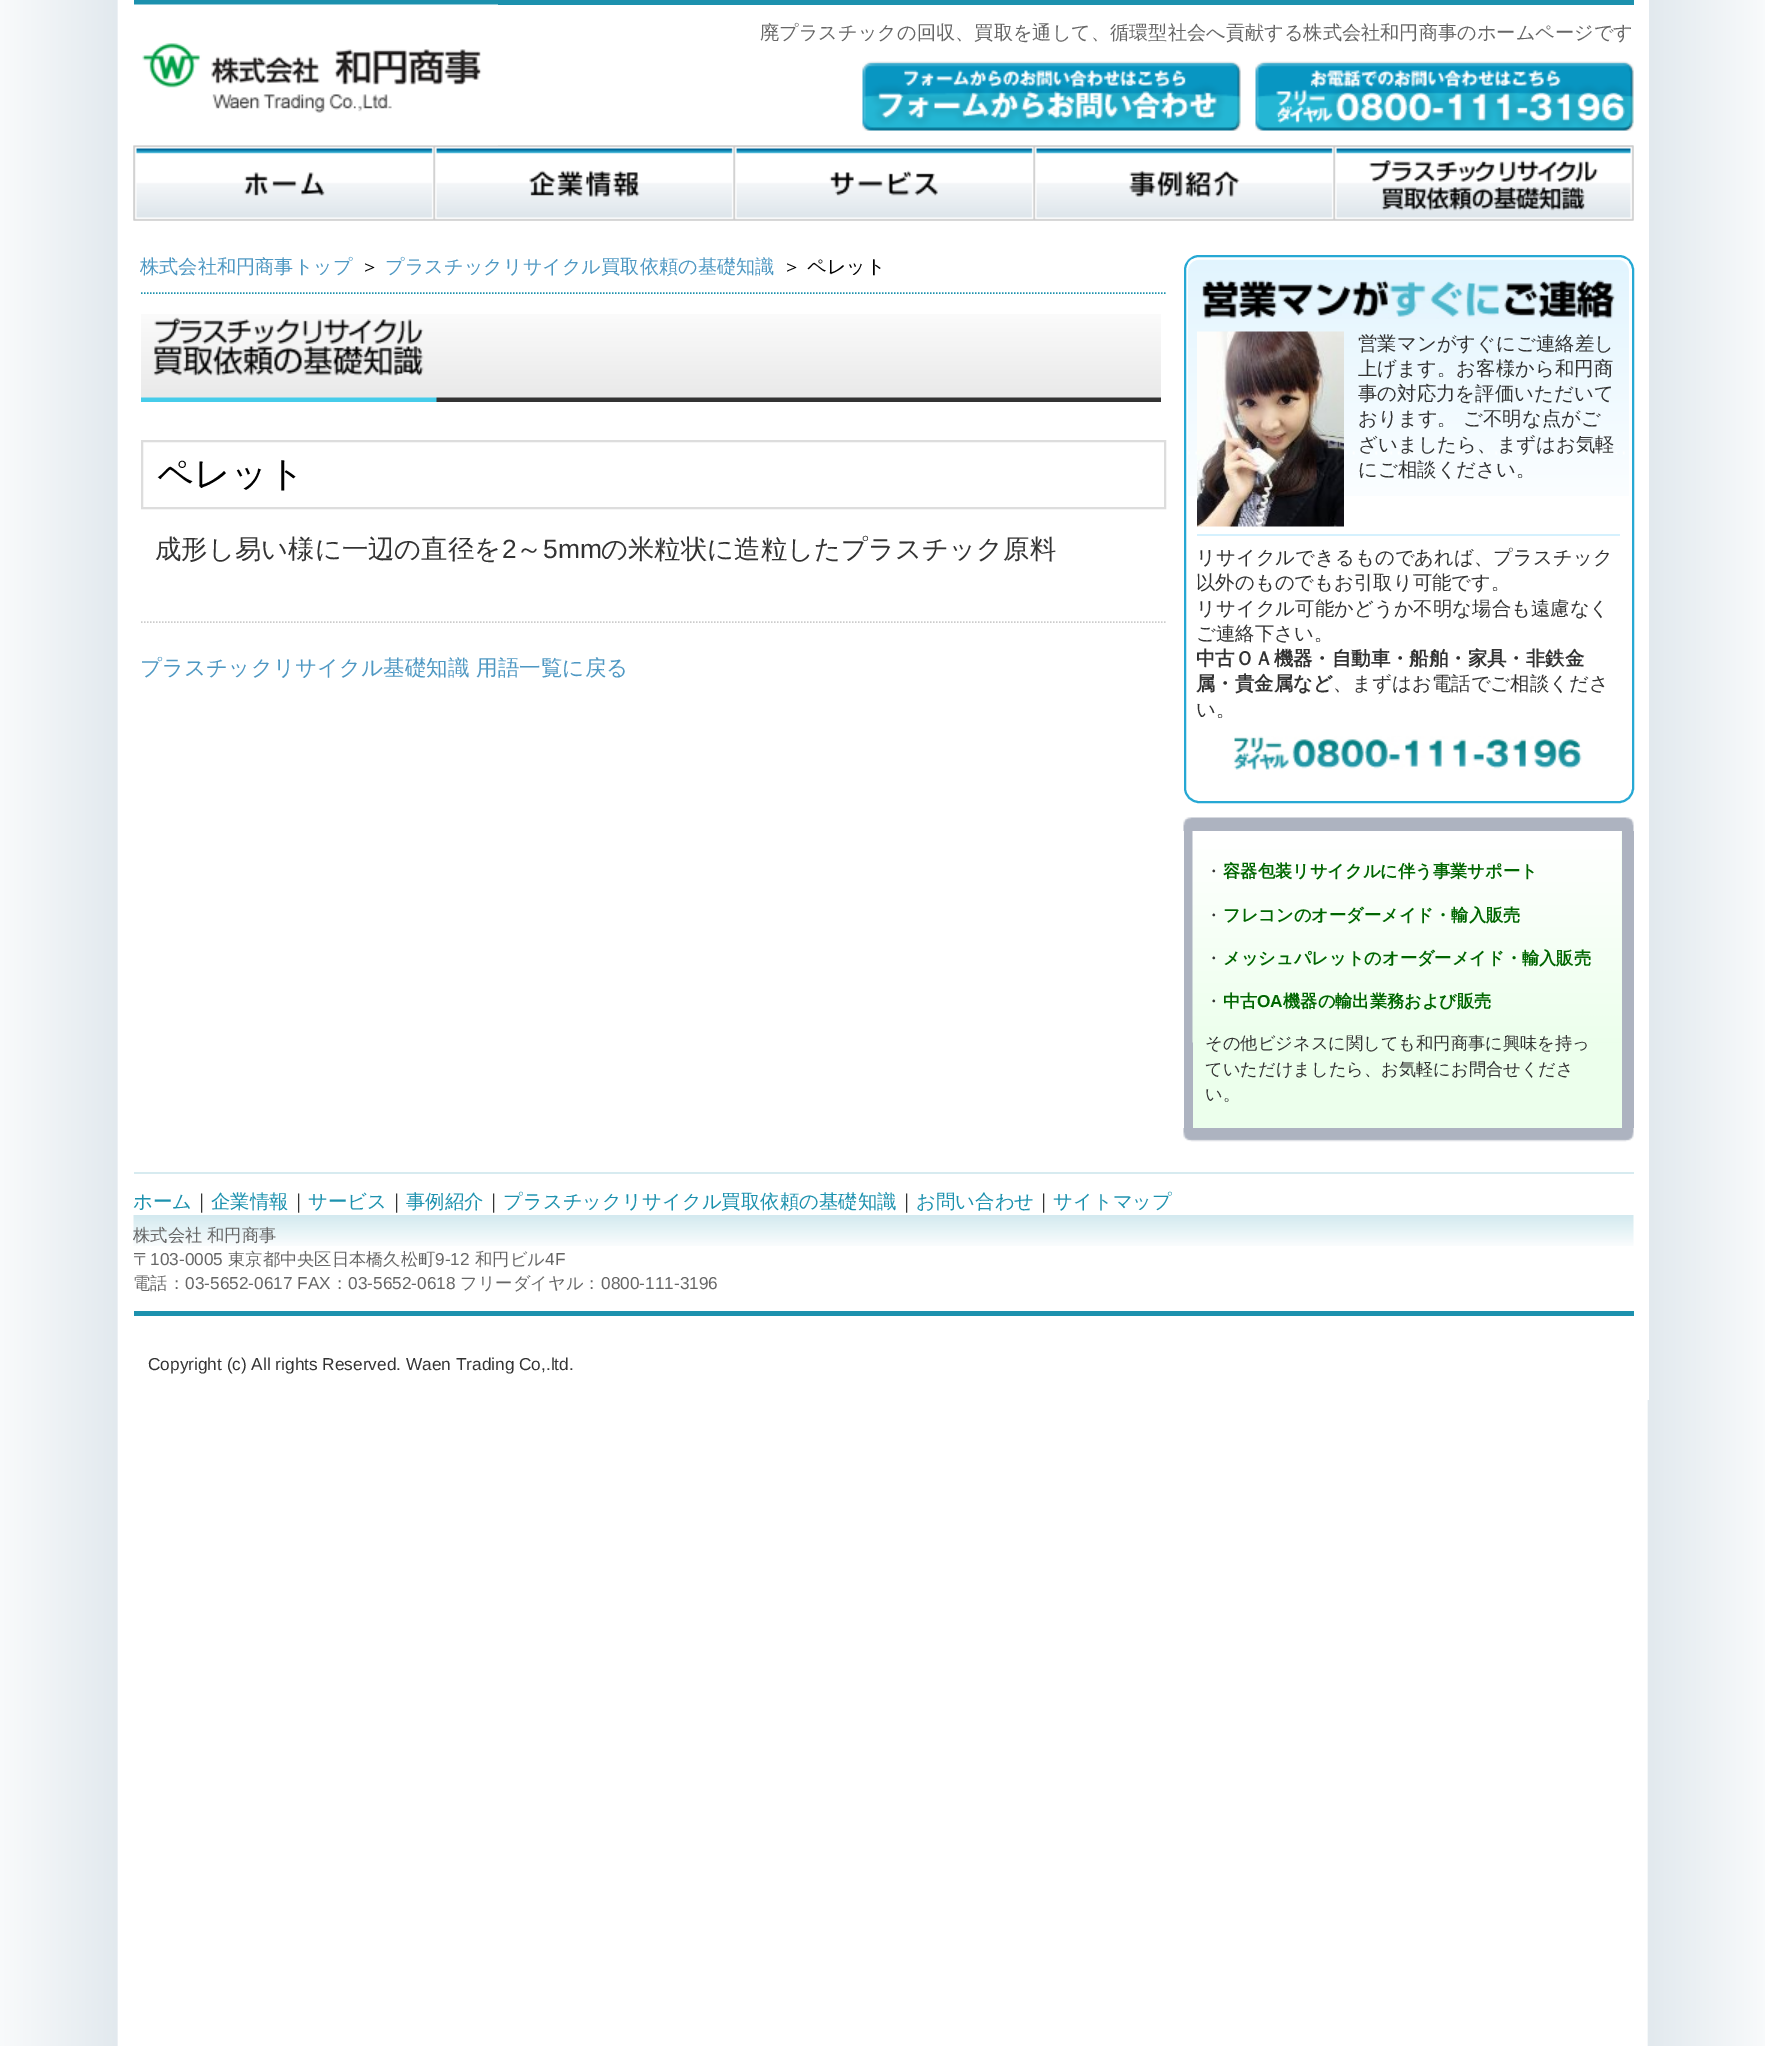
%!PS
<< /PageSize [1765 2046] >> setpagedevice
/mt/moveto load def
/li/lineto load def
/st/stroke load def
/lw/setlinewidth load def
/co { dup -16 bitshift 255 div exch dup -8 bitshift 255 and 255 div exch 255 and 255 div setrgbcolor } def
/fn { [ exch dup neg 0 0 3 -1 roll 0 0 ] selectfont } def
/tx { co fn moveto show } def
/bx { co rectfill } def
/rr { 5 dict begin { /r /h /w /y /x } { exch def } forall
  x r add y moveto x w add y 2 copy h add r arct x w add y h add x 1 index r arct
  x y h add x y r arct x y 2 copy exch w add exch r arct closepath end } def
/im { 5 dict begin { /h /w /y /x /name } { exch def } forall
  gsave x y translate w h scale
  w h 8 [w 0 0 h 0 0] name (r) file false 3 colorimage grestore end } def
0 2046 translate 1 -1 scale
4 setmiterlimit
0 0 1765 2046 16#FFFFFF bx
(media/1.raw) 0 0 1765 2046 im
1647 0 2 1400 16#FFFFFF bx
134 0 1500 5 16#1C91AE bx
(media/5.raw) 133 145 1501 76 im
(media/2.raw) 134 4 364 142 im
(media/3.raw) 862 61 379 70 im
(media/4.raw) 1255 61 379 70 im
(media/6.raw) 133 145 301 76 im
(media/7.raw) 433 145 301 76 im
(media/8.raw) 733 145 301 76 im
(media/9.raw) 1033 145 301 76 im
(media/10.raw) 1333 145 301 76 im
1.5 lw
[1.5 1.5] 0 setdash
141 293 mt 1165.5 293 li st
(media/11.raw) 141 314 1020 88 im
16#DDDDDD co
2 lw
[] 0 setdash
142 441 1023 67 rectstroke
16#CCCCCC co
1.5 lw
[1.5 1.5] 0 setdash
141 622 mt 1165.5 622 li st
16#26A8D4 co
2 lw
[] 0 setdash
1185 256 448 546 14 rr st
(media/12.raw) 1188 259 441 237 im
(media/13.raw) 1202 280 413 39 im
1197 534 423 2 16#D5F1FE bx
(media/14.raw) 1197 331 147 196 im
(media/15.raw) 1233 736 349 34 im
(media/16.raw) 1183 817 451 14 im
1184 831 450 297 16#ADB3C0 bx
1193 831 429 297 16#ECFFEC bx
(media/17.raw) 1192 831 430 212 im
(media/18.raw) 1183 1128 451 14 im
134 1172 1500 2 16#D7EBF0 bx
(media/19.raw) 133 1215 1501 31 im
134 1311 1500 5 16#1C91AE bx
(廃プラスチックの回収、買取を通して、循環型社会へ貢献する株式会社和円商事のホームページです) 760 39 /WenQuanYiZenHei-Medium 19.2 16#666666 tx
(株式会社和円商事トップ) 140 273 /WenQuanYiZenHei-Medium 19.2 16#4E98C3 tx
(＞) 360 273 /WenQuanYiZenHei-Medium 19.2 16#000000 tx
(プラスチックリサイクル買取依頼の基礎知識) 385 273 /WenQuanYiZenHei-Medium 19.2 16#4E98C3 tx
(＞ ペレット) 782 273 /WenQuanYiZenHei-Medium 19.2 16#000000 tx
(ペレット) 157 486 /WenQuanYiZenHei-Medium 36 16#000000 tx
(成形し易い様に一辺の直径を) 155 558 /WenQuanYiZenHei-Medium 26.4 16#333333 tx
(2) 502 558 /LiberationSans-Regular 26.4 16#333333 tx
(～) 516 558 /WenQuanYiZenHei-Medium 26.4 16#333333 tx
(5mm) 543 558 /LiberationSans-Regular 26.4 16#333333 tx
(の米粒状に造粒したプラスチック原料) 601 558 /WenQuanYiZenHei-Medium 26.4 16#333333 tx
(プラスチックリサイクル基礎知識 用語一覧に戻る) 140 675 /WenQuanYiZenHei-Medium 21.6 16#4E98C3 tx
(営業マンがすぐにご連絡差し) 1358 350 /WenQuanYiZenHei-Medium 19.4 16#333333 tx
(上げます。お客様から和円商) 1358 375 /WenQuanYiZenHei-Medium 19.4 16#333333 tx
(事の対応力を評価いただいて) 1358 400 /WenQuanYiZenHei-Medium 19.4 16#333333 tx
(おります。) 1358 425 /WenQuanYiZenHei-Medium 19.4 16#333333 tx
(ご不明な点がご) 1463 425 /WenQuanYiZenHei-Medium 19.4 16#333333 tx
(ざいましたら、まずはお気軽) 1358 451 /WenQuanYiZenHei-Medium 19.4 16#333333 tx
(にご相談ください。) 1358 476 /WenQuanYiZenHei-Medium 19.4 16#333333 tx
(リサイクルできるものであれば、プラスチック) 1196 564 /WenQuanYiZenHei-Medium 19.4 16#333333 tx
(以外のものでもお引取り可能です。) 1196 589 /WenQuanYiZenHei-Medium 19.4 16#333333 tx
(リサイクル可能かどうか不明な場合も遠慮なく) 1196 615 /WenQuanYiZenHei-Medium 19.4 16#333333 tx
(ご連絡下さい。) 1196 640 /WenQuanYiZenHei-Medium 19.4 16#333333 tx
(中古ＯＡ機器・自動車・船舶・家具・非鉄金) 1196 665 /WenQuanYiZenHei-Bold 19.4 16#333333 tx
(属・貴金属など) 1196 690 /WenQuanYiZenHei-Bold 19.4 16#333333 tx
(、まずはお電話でご相談くださ) 1333 690 /WenQuanYiZenHei-Medium 19.4 16#333333 tx
(い。) 1196 716 /WenQuanYiZenHei-Medium 19.4 16#333333 tx
(・) 1205 877 /WenQuanYiZenHei-Medium 17.25 16#333333 tx
(容器包装リサイクルに伴う事業サポート) 1223 877 /WenQuanYiZenHei-Bold 17.25 16#006600 tx
(・) 1205 921 /WenQuanYiZenHei-Medium 17.25 16#333333 tx
(フレコンのオーダーメイド・輸入販売) 1223 921 /WenQuanYiZenHei-Bold 17.25 16#006600 tx
(・) 1205 964 /WenQuanYiZenHei-Medium 17.25 16#333333 tx
(メッシュパレットのオーダーメイド・輸入販売) 1223 964 /WenQuanYiZenHei-Bold 17.25 16#006600 tx
(・) 1205 1007 /WenQuanYiZenHei-Medium 17.25 16#333333 tx
(中古) 1223 1007 /WenQuanYiZenHei-Bold 17.25 16#006600 tx
(OA) 1257 1007 /LiberationSans-Bold 17.25 16#006600 tx
(機器の輸出業務および販売) 1283 1007 /WenQuanYiZenHei-Bold 17.25 16#006600 tx
(その他ビジネスに関しても和円商事に興味を持っ) 1205 1049 /WenQuanYiZenHei-Medium 17.25 16#333333 tx
(ていただけましたら、お気軽にお問合せくださ) 1205 1075 /WenQuanYiZenHei-Medium 17.25 16#333333 tx
(い。) 1205 1100 /WenQuanYiZenHei-Medium 17.25 16#333333 tx
(ホーム) 133 1208 /WenQuanYiZenHei-Medium 19.4 16#1C91AE tx
(｜) 192 1208 /WenQuanYiZenHei-Medium 19.4 16#333333 tx
(企業情報) 211 1208 /WenQuanYiZenHei-Medium 19.4 16#1C91AE tx
(｜) 289 1208 /WenQuanYiZenHei-Medium 19.4 16#333333 tx
(サービス) 308 1208 /WenQuanYiZenHei-Medium 19.4 16#1C91AE tx
(｜) 387 1208 /WenQuanYiZenHei-Medium 19.4 16#333333 tx
(事例紹介) 406 1208 /WenQuanYiZenHei-Medium 19.4 16#1C91AE tx
(｜) 484 1208 /WenQuanYiZenHei-Medium 19.4 16#333333 tx
(プラスチックリサイクル買取依頼の基礎知識) 503 1208 /WenQuanYiZenHei-Medium 19.4 16#1C91AE tx
(｜) 897 1208 /WenQuanYiZenHei-Medium 19.4 16#333333 tx
(お問い合わせ) 916 1208 /WenQuanYiZenHei-Medium 19.4 16#1C91AE tx
(｜) 1034 1208 /WenQuanYiZenHei-Medium 19.4 16#333333 tx
(サイトマップ) 1053 1208 /WenQuanYiZenHei-Medium 19.4 16#1C91AE tx
(株式会社 和円商事) 133 1241 /WenQuanYiZenHei-Medium 17.25 16#666666 tx
(〒) 133 1265 /WenQuanYiZenHei-Medium 17.25 16#666666 tx
(103-0005) 150 1265 /LiberationSans-Regular 17.25 16#666666 tx
(東京都中央区日本橋久松町) 228 1265 /WenQuanYiZenHei-Medium 17.25 16#666666 tx
(9-12) 435 1265 /LiberationSans-Regular 17.25 16#666666 tx
(和円ビル) 475 1265 /WenQuanYiZenHei-Medium 17.25 16#666666 tx
(4F) 545 1265 /LiberationSans-Regular 17.25 16#666666 tx
(電話：) 133 1289 /WenQuanYiZenHei-Medium 17.25 16#666666 tx
(03-5652-0617 FAX) 185 1289 /LiberationSans-Regular 17.25 16#666666 tx
(：) 331 1289 /WenQuanYiZenHei-Medium 17.25 16#666666 tx
(03-5652-0618) 348 1289 /LiberationSans-Regular 17.25 16#666666 tx
(フリーダイヤル：) 460 1289 /WenQuanYiZenHei-Medium 17.25 16#666666 tx
(0800-111-3196) 601 1289 /LiberationSans-Regular 17.25 16#666666 tx
(Copyright \(c\) All rights Reserved. Waen Trading Co,.ltd.) 148 1370 /LiberationSans-Regular 17.25 16#333333 tx
showpage
